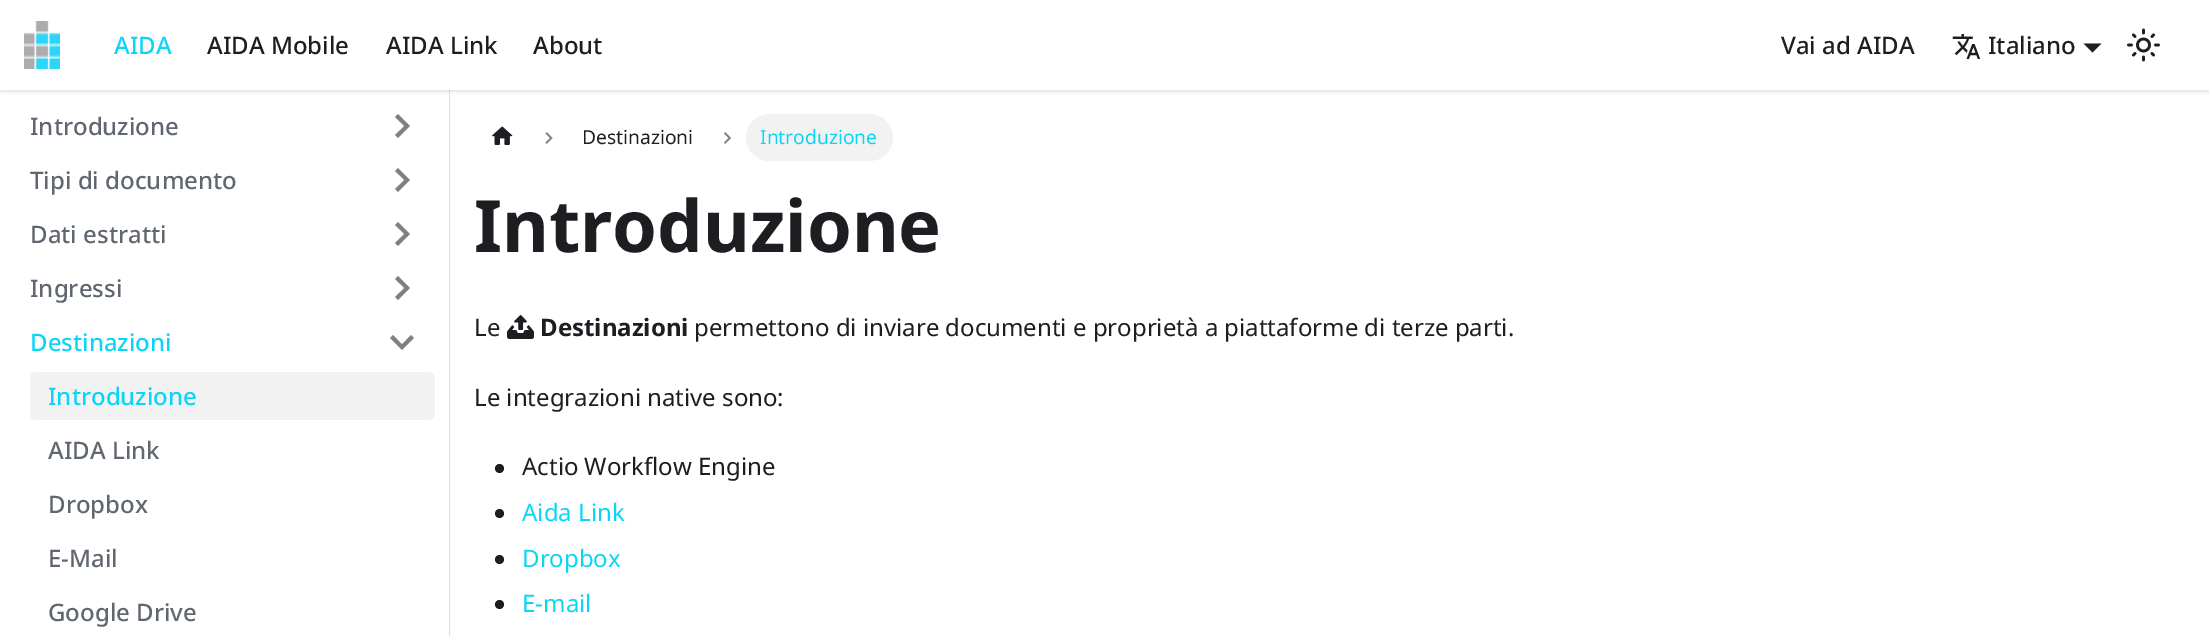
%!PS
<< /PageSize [2209 636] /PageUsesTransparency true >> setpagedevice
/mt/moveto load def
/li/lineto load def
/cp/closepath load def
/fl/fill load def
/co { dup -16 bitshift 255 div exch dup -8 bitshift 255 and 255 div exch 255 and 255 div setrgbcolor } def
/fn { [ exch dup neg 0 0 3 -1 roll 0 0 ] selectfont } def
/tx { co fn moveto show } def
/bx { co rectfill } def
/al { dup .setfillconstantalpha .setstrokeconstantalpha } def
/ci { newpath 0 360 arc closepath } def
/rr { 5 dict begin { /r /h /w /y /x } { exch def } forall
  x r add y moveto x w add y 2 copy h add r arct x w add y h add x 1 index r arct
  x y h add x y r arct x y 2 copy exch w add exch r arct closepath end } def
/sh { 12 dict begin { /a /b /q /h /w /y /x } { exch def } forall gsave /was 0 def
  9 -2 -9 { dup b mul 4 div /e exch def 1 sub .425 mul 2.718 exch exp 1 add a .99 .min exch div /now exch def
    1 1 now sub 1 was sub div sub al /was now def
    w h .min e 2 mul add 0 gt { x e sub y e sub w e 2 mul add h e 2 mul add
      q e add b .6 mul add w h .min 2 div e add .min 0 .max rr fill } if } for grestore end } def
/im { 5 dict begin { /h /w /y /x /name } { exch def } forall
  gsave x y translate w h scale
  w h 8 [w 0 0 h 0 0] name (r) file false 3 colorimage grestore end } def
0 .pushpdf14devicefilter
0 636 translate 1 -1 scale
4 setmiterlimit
0 0 2209 636 16#FFFFFF bx
449 90 1 546 16#DADDE1 bx
16#000000 co
0 2 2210 90 0 1.5 .1 sh
0 0 2209 90 16#FFFFFF bx
(media/1.raw) 24 21 36 48 im
(media/2.raw) 1952 34 29 25 im
16#1C1E21 co
2083.5 43.5 mt 2101.5 43.5 li 2092.5 52.5 li cp fl
(media/3.raw) 2127 28 33 34 im
16#808080 co
395 117 mt 404.5 126 li 395 135 li 398 138 li 410 126 li 398 114 li cp fl
395 171 mt 404.5 180 li 395 189 li 398 192 li 410 180 li 398 168 li cp fl
395 225 mt 404.5 234 li 395 243 li 398 246 li 410 234 li 398 222 li cp fl
395 279 mt 404.5 288 li 395 297 li 398 300 li 410 288 li 398 276 li cp fl
411 335 mt 402 344.5 li 393 335 li 390 338 li 402 350 li 414 338 li cp fl
16#F2F2F2 co
30 372 405 48 6 rr fl
(media/4.raw) 492 126 21 19 im
(media/5.raw) 545 132 8 12 im
(media/6.raw) 723 132 8 12 im
746 114 147 47 23.5 rr fl
(media/7.raw) 507 315 27 24 im
16#1C1E21 co
499.5 468.5 4.5 ci fl
499.5 513.5 4.5 ci fl
499.5 559.5 4.5 ci fl
499.5 604.5 4.5 ci fl
(AIDA) 114 54 /NotoSans-Medium 24 16#09D5F7 tx
(AIDA Mobile) 207 54 /NotoSans-Medium 24 16#1C1E21 tx
(AIDA Link) 386 54 /NotoSans-Medium 24 16#1C1E21 tx
(About) 533 54 /NotoSans-Medium 24 16#1C1E21 tx
(Vai ad AIDA) 1781 54 /NotoSans-Medium 24 16#1C1E21 tx
(Italiano) 1988 54 /NotoSans-Medium 24 16#1C1E21 tx
(Introduzione) 30 135 /NotoSans-Medium 24 16#606770 tx
(Tipi di documento) 30 189 /NotoSans-Medium 24 16#606770 tx
(Dati estratti) 30 243 /NotoSans-Medium 24 16#606770 tx
(Ingressi) 30 297 /NotoSans-Medium 24 16#606770 tx
(Destinazioni) 30 351 /NotoSans-Medium 24 16#09D5F7 tx
(Introduzione) 48 405 /NotoSans-Medium 24 16#09D5F7 tx
(AIDA Link) 48 459 /NotoSans-Medium 24 16#606770 tx
(Dropbox) 48 513 /NotoSans-Medium 24 16#606770 tx
(E-Mail) 48 567 /NotoSans-Medium 24 16#606770 tx
(Google Drive) 48 621 /NotoSans-Medium 24 16#606770 tx
(Destinazioni) 582 144 /NotoSans-Regular 19.25 16#1C1E21 tx
(Introduzione) 760 144 /NotoSans-Regular 19.25 16#09D5F7 tx
(Introduzione) 474 252 /NotoSans-Bold 72 16#1C1E21 tx
(Le) 474 336 /NotoSans-Regular 24 16#1C1E21 tx
(Destinazioni) 540 336 /NotoSans-Bold 24 16#1C1E21 tx
(permettono di inviare documenti e proprietà a piattaforme di terze parti.) 694 336 /NotoSans-Regular 24 16#1C1E21 tx
(Le integrazioni native sono:) 474 406 /NotoSans-Regular 24 16#1C1E21 tx
(Actio Workflow Engine) 522 475 /NotoSans-Regular 24 16#1C1E21 tx
(Aida Link) 522 521 /NotoSans-Regular 24 16#09D5F7 tx
(Dropbox) 522 567 /NotoSans-Regular 24 16#09D5F7 tx
(E-mail) 522 612 /NotoSans-Regular 24 16#09D5F7 tx
.poppdf14devicefilter showpage
